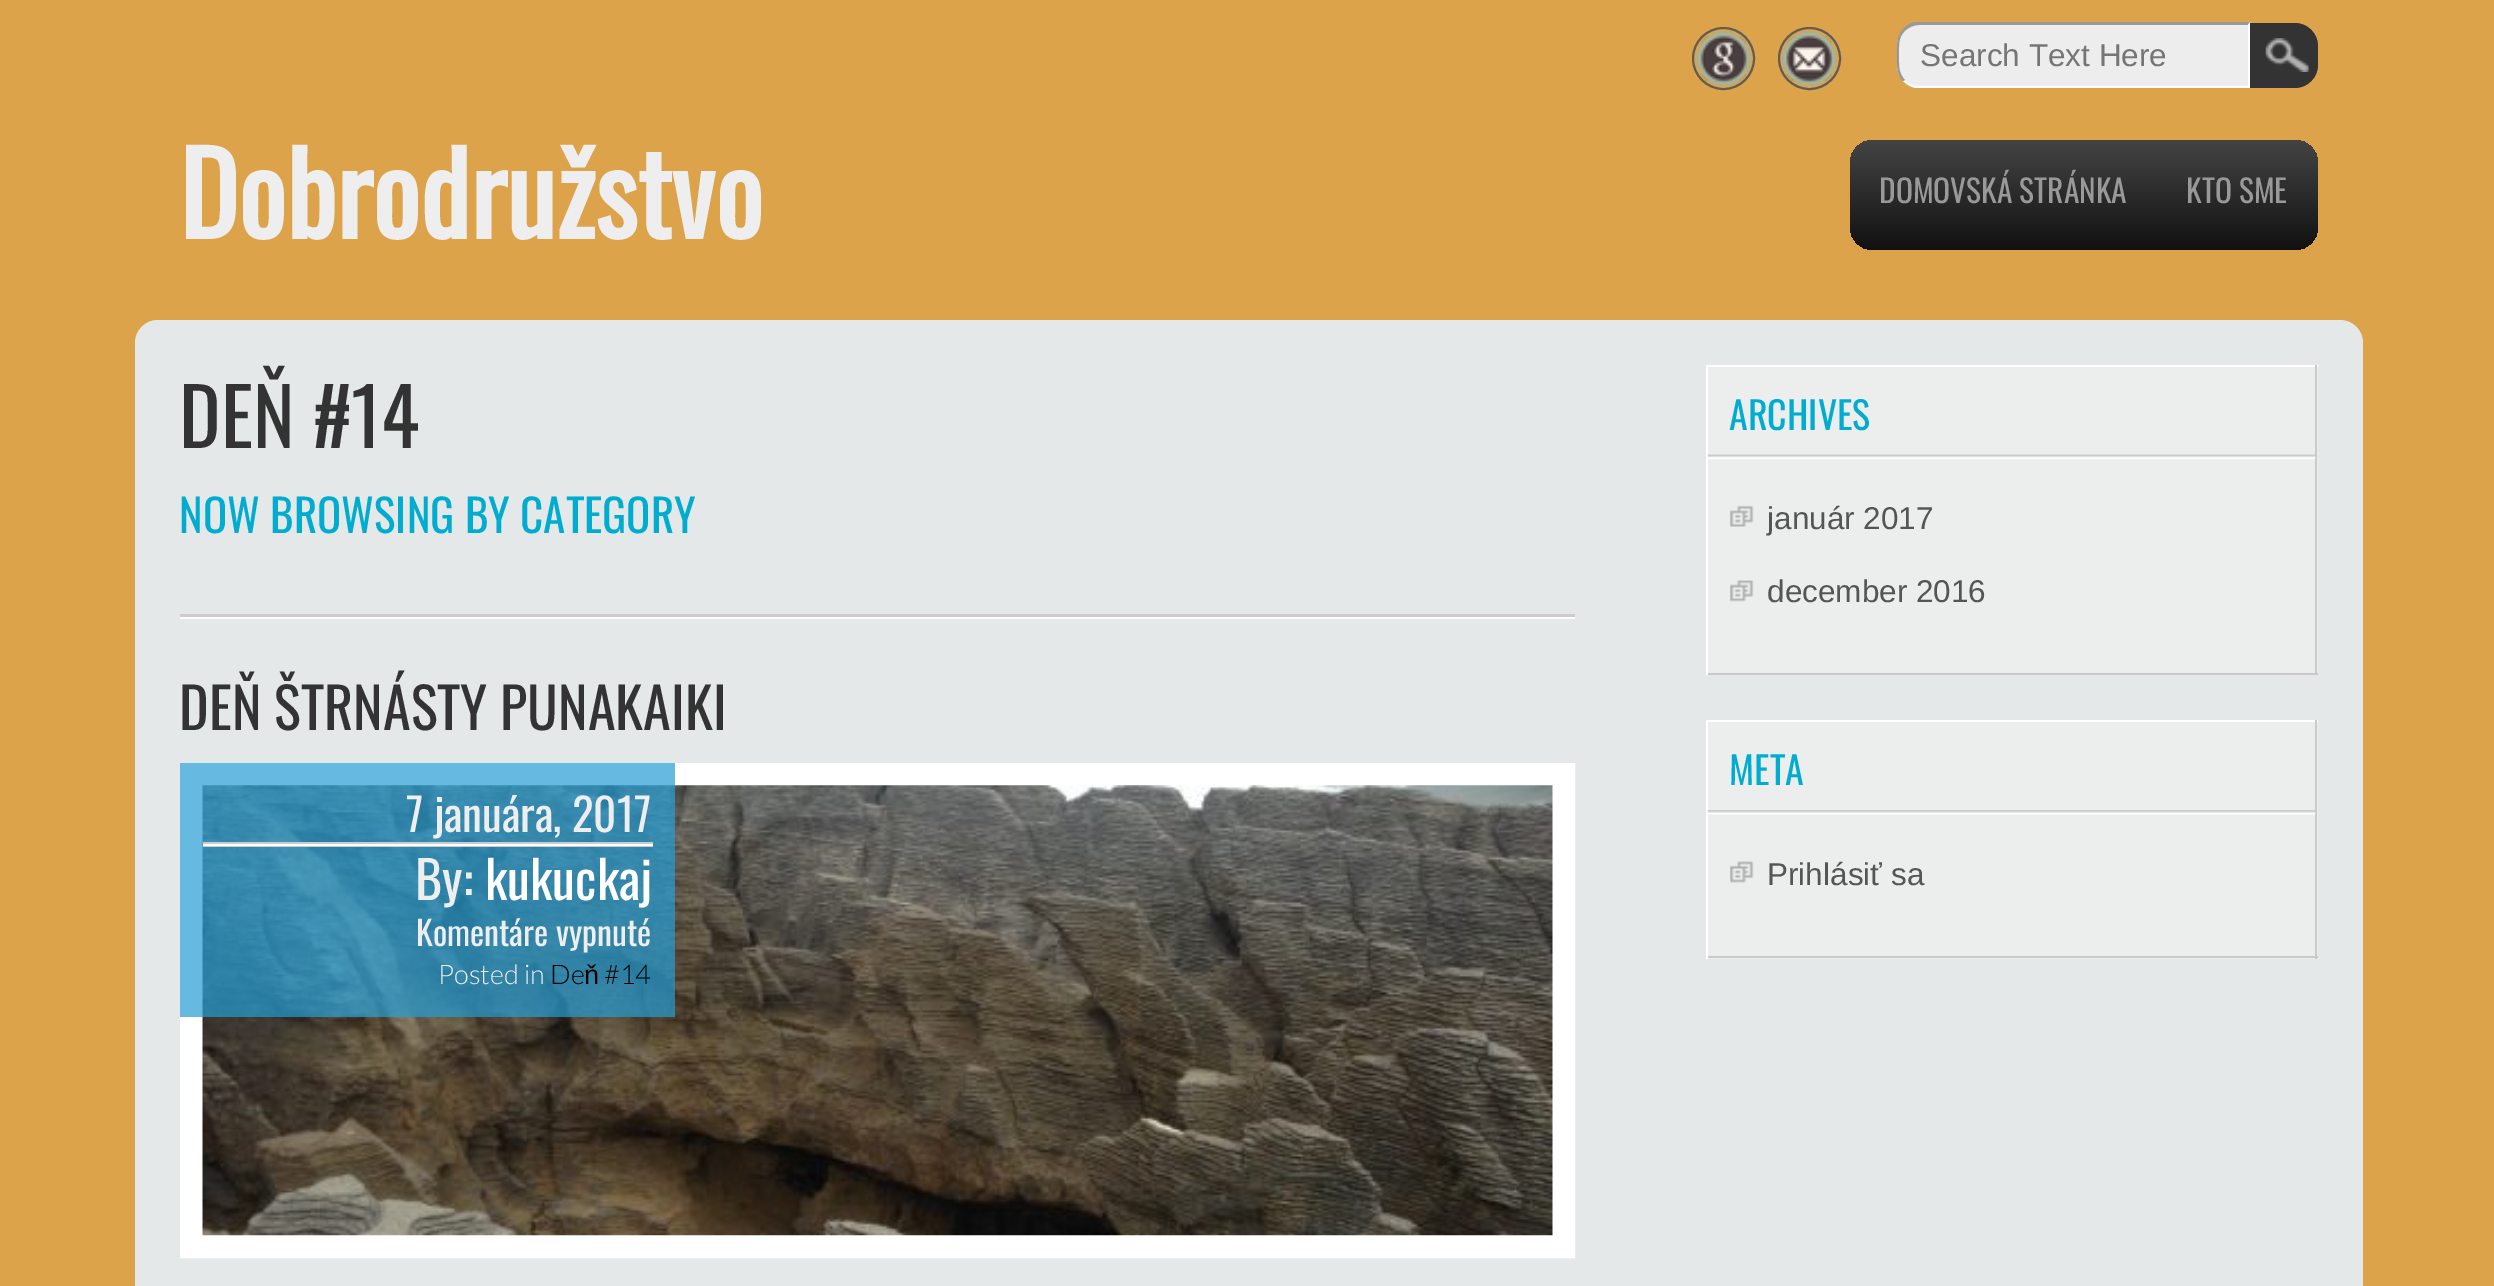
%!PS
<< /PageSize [2494 1286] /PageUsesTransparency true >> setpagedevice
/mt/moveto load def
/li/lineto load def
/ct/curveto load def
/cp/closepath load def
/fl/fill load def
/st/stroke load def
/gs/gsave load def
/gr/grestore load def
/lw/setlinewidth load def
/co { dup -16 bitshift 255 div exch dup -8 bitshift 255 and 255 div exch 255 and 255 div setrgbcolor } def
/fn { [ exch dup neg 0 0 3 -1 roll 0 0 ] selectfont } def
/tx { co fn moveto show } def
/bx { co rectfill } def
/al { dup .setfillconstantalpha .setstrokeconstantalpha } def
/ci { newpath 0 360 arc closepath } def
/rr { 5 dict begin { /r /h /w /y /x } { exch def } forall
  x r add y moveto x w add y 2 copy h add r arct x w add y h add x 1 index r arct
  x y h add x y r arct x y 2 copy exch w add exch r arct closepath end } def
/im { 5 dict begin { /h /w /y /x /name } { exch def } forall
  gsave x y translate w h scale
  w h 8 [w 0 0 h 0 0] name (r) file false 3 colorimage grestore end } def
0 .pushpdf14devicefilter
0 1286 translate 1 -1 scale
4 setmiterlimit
0 0 2494 1286 16#DDA34B bx
(media/1.raw) 1696 31 55 55 im
0.9 al
16#555555 co
2 lw
1723.5 58.5 30.5 ci st
1 al
(media/2.raw) 1782 31 54 55 im
0.9 al
1809.5 58.5 30.5 ci st
1 al
16#EDEDED co
1920 23 mt 2250 23 li 2250 88 li 1920 88 li 1907.5 88 1897 77.5 1897 65 ct 1897 46 li 1897 33.5 1907.5 23 1920 23 ct cp fl
16#999999 co
1919 25 mt 1914 25 1909 27 1905 31 ct 1903 29 li 1906 26 1910 23 1915 22 ct 2250 22 li 2248 25 li cp fl
16#FFFFFF co
2250 22 mt 2248 25 li 2248 86 li 2250 88 li cp fl
2250 88 mt 1916 88 li 1911 87 1907 85 1903 81 ct 1905 80 li 1908 84 1914 86 1919 86 ct 2248 86 li cp fl
16#999999 co
1903 81 mt 1896 74 1897 64 1897 55 ct 1897 45 1896 37 1903 29 ct 1905 31 li 1898 37 1899 46 1899 55 ct 1899 64 1898 73 1905 80 ct cp fl
16#333333 co
2250 23 mt 2295 23 li 2307.5 23 2318 33.5 2318 46 ct 2318 65 li 2318 77.5 2307.5 88 2295 88 ct 2250 88 li cp fl
(media/3.raw) 2265 38 44 34 im
gs 1850 140 468 110 23 rr clip newpath
<< /ShadingType 2 /ColorSpace /DeviceRGB /Coords [2084 139 2084 250] /Extend [true true] /Function << /FunctionType 2 /Domain [0 1] /C0 [.267 .267 .267] /C1 [.067 .067 .067] /N 1 >> >> shfill gr
16#E4E8E9 co
135 320 2228 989 23 rr fl
180 614 1395 3 16#CCCCCC bx
180 617 1395 2 16#FFFFFF bx
23 lw
191.5 774.5 1372 472 rectstroke
(media/4.raw) 202 785 1351 451 im
0.7 al
180 763 495 254 16#259DD5 bx
1 al
203 842 450 5 16#CCCCCC bx
203 844 450 2 16#FFFFFF bx
1708 367 610 306 16#ECEDED bx
1706 365 612 2 16#FFFFFF bx
2315 365 2 310 16#C9C9C9 bx
1706 673 612 2 16#C9C9C9 bx
1706 365 2 310 16#FFFFFF bx
(media/5.raw) 1707 454 609 5 im
(media/6.raw) 1730 505 24 22 im
(media/7.raw) 1730 580 24 22 im
1708 722 610 237 16#ECEDED bx
1706 720 612 2 16#FFFFFF bx
2315 720 2 239 16#C9C9C9 bx
1706 956 612 2 16#C9C9C9 bx
1706 720 2 239 16#FFFFFF bx
(media/8.raw) 1707 810 609 5 im
(media/9.raw) 1730 861 24 22 im
(Search Text Here) 1920 66 /LiberationSans-Regular 31.5 16#757575 tx
(Dobrodružstvo) 179 239 /Oswald-Bold 112.5 16#EEEEEE tx
(DOMOVSKÁ STRÁNKA) 1879 203 /Oswald-Regular 31.5 16#999999 tx
(KTO SME) 2186 203 /Oswald-Regular 31.5 16#999999 tx
(DEŇ #14) 179 448 /Oswald-Regular 79 16#333333 tx
(NOW BROWSING BY CATEGORY) 179 533 /Oswald-Regular 45 16#00ACCF tx
(DEŇ ŠTRNÁSTY PUNAKAIKI) 179 730 /Oswald-Regular 56.25 16#333333 tx
(7 januára, 2017) 406 832 /Oswald-Regular 45 16#EEEEEE tx
(By:) 415 900 /Oswald-Regular 52 16#EEEEEE tx
(kukuckaj) 485 900 /Oswald-Regular 52 16#FFFFFF tx
(Komentáre vypnuté) 416 946 /Oswald-Regular 33.75 16#EEEEEE tx
(Posted in) 438 984 /Lato-Light 27 16#EEEEEE tx
(De) 550 984 /Lato-Light 27 16#000000 tx
(ň) 584 984 /LiberationSans-Regular 27 16#000000 tx
(#14) 604 984 /Lato-Light 27 16#000000 tx
(ARCHIVES) 1729 430 /Oswald-Regular 38 16#00ACCF tx
(január 2017) 1767 529 /LiberationSans-Regular 31.5 16#555555 tx
(december 2016) 1767 602 /LiberationSans-Regular 31.5 16#555555 tx
(META) 1729 785 /Oswald-Regular 38 16#00ACCF tx
(Prihlásiť sa) 1767 885 /LiberationSans-Regular 31.5 16#555555 tx
.poppdf14devicefilter showpage
